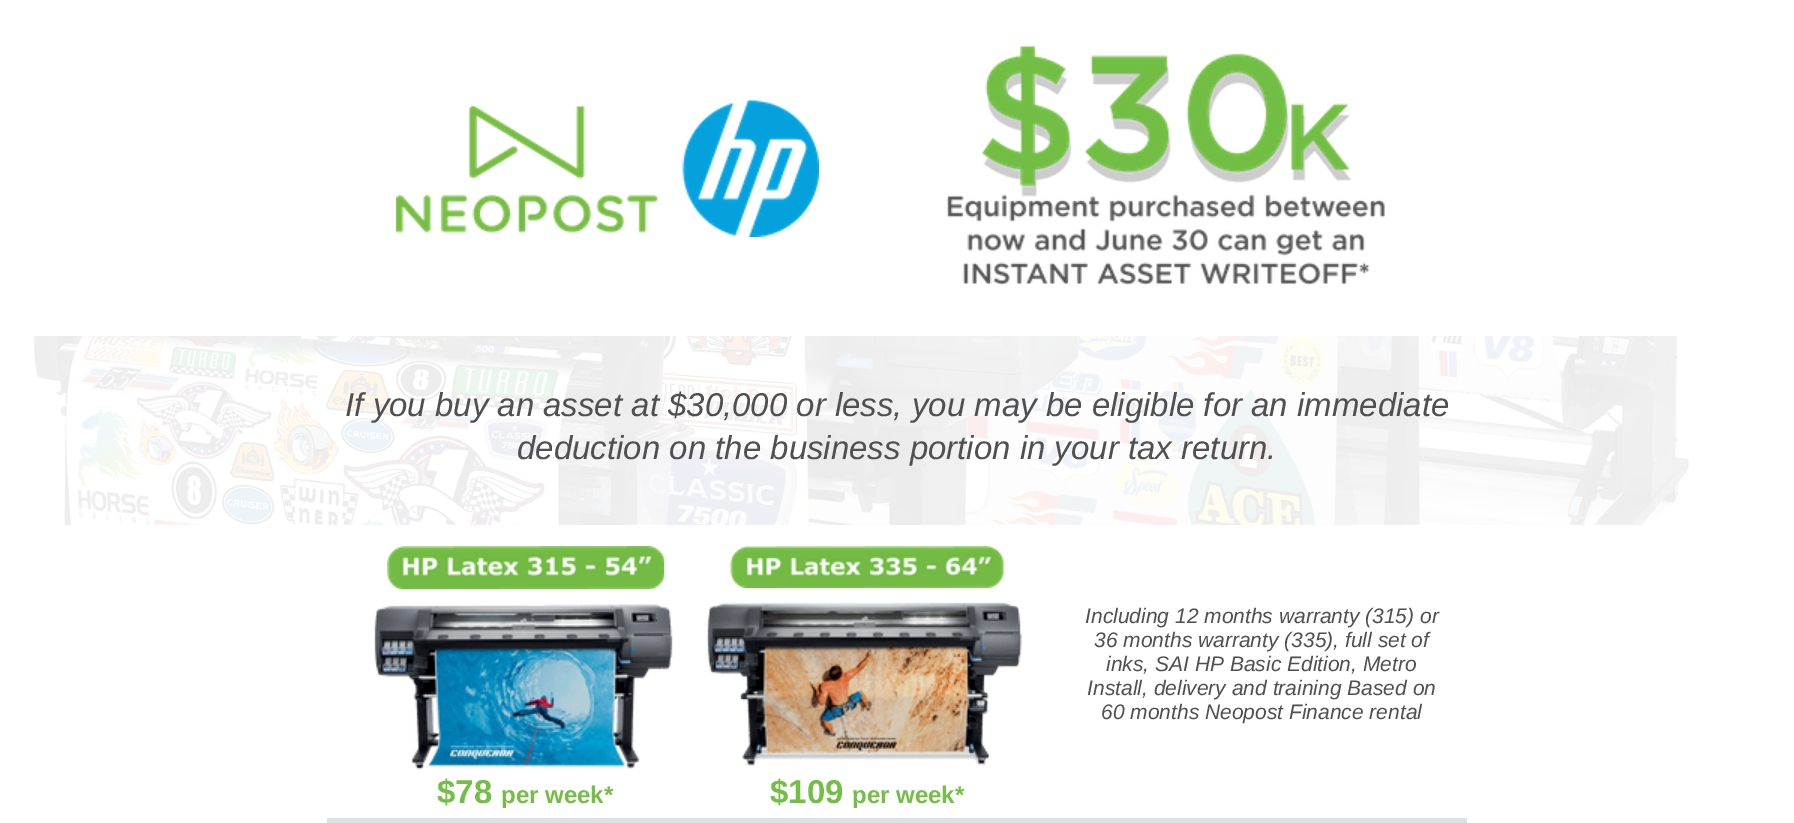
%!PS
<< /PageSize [1794 823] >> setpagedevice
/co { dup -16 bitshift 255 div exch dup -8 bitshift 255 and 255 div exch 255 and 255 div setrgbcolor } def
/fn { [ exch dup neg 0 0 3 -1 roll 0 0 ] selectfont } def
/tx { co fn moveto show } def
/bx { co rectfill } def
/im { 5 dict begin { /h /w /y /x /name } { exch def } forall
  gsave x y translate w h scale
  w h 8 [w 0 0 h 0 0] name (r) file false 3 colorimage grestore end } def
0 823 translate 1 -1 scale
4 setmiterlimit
0 0 1794 823 16#FFFFFF bx
(media/1.raw) 33 336 1657 189 im
(media/2.raw) 396 100 423 137 im
(media/3.raw) 946 46 439 240 im
(media/4.raw) 387 546 278 44 im
(media/5.raw) 730 546 274 42 im
(media/6.raw) 374 604 299 166 im
(media/7.raw) 706 602 316 164 im
327 818 1140 5 16#DFE0E1 bx
(If you buy an asset at $30,000 or less, you may be eligible for an immediate) 345 416 /LiberationSans-Italic 33 16#505050 tx
(deduction on the business portion in your tax return.) 517 459 /LiberationSans-Italic 33 16#505050 tx
(Including 12 months warranty \(315\) or) 1085 623 /LiberationSans-Italic 21 16#505050 tx
(36 months warranty \(335\), full set of) 1094 647 /LiberationSans-Italic 21 16#505050 tx
(inks, SAI HP Basic Edition, Metro) 1106 671 /LiberationSans-Italic 21 16#505050 tx
(Install, delivery and training Based on) 1087 695 /LiberationSans-Italic 21 16#505050 tx
(60 months Neopost Finance rental) 1101 719 /LiberationSans-Italic 21 16#505050 tx
($78) 437 803 /LiberationSans-Bold 33 16#72BF44 tx
(per week*) 501 803 /LiberationSans-Bold 24 16#72BF44 tx
($109) 770 803 /LiberationSans-Bold 33 16#72BF44 tx
(per week*) 852 803 /LiberationSans-Bold 24 16#72BF44 tx
showpage
